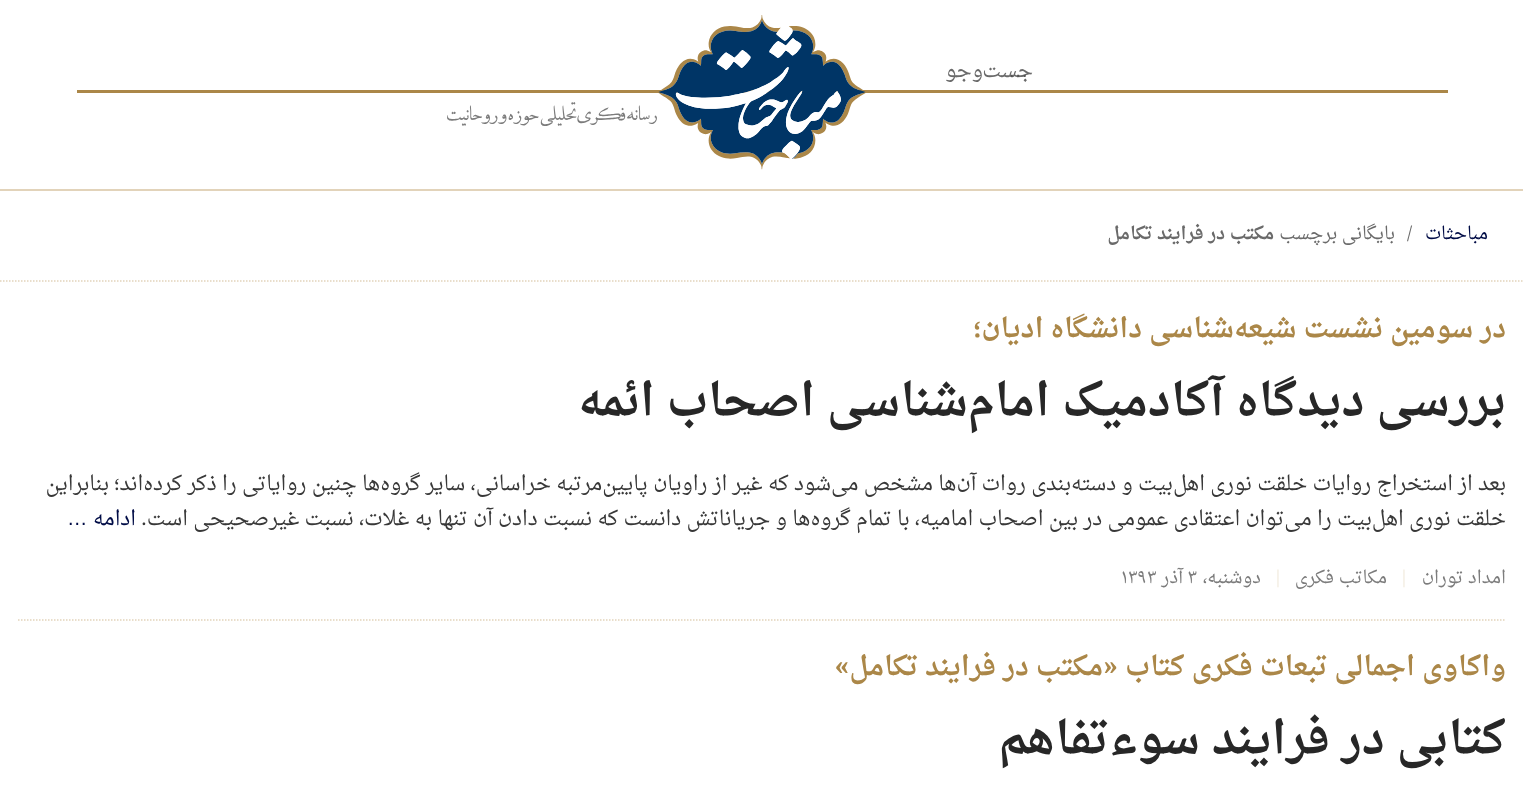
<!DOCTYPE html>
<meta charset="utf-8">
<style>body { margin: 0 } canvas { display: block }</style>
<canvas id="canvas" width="1523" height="787"></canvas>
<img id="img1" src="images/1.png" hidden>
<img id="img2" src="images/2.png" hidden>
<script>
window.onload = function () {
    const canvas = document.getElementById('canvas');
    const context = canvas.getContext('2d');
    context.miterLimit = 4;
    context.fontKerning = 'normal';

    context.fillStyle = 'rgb(255, 255, 255)';
    context.fillRect(0, 0, 1523, 787);
    context.fillStyle = 'rgb(226, 211, 186)';
    context.fillRect(0, 189, 1523, 2);
    context.fillStyle = 'rgb(171, 135, 72)';
    context.fillRect(77, 90, 1371, 3);
    context.drawImage(document.getElementById('img1'), 658, 15, 208, 155);
    context.drawImage(document.getElementById('img2'), 447, 102, 210, 24);
    context.beginPath();
    context.moveTo(0, 281);
    context.lineTo(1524, 281);
    context.strokeStyle = 'rgb(226, 211, 186)';
    context.lineWidth = 1.5;
    context.setLineDash([1.5, 1.5]);
    context.stroke();
    context.beginPath();
    context.moveTo(18, 620);
    context.lineTo(1506, 620);
    context.stroke();
    context.direction = 'rtl';
    context.font = '20.4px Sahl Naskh';
    context.fillStyle = 'rgb(106, 106, 106)';
    context.fillText('جست', 1033, 77);
    context.fillText('وجو', 983, 77);
    context.direction = 'ltr';
    context.font = '20.4px Liberation Sans';
    context.fillStyle = 'rgb(83, 83, 83)';
    context.fillText('…', 1008, 77);
    context.direction = 'rtl';
    context.font = '17.75px Sahl Naskh';
    context.fillStyle = 'rgb(0, 12, 70)';
    context.fillText('مباحثات', 1488, 239);
    context.direction = 'ltr';
    context.fillStyle = 'rgb(106, 106, 106)';
    context.fillText('/', 1407, 239);
    context.direction = 'rtl';
    context.fillText('بایگانی برچسب', 1395, 239);
    context.font = 'bold 17.75px Sahl Naskh';
    context.fillText('مکتب در فرایند تکامل', 1274, 239);
    context.font = 'bold 27px Sahl Naskh';
    context.fillStyle = 'rgb(171, 135, 72)';
    context.fillText('در سومین نشست شیعه‌شناسی دانشگاه ادیان؛', 1506, 337);
    context.font = 'bold 45px Sahl Naskh';
    context.fillStyle = 'rgb(39, 39, 39)';
    context.fillText('بررسی دیدگاه آکادمیک امام‌شناسی اصحاب ائمه', 1506, 415);
    context.font = '20.4px Sahl Naskh';
    context.fillStyle = 'rgb(56, 56, 56)';
    context.fillText('بعد از استخراج روایات خلقت نوری اهل‌بیت و دسته‌بندی روات آن‌ها مشخص می‌شود که غیر از راویان پایین‌مرتبه خراسانی، سایر گروه‌ها چنین روایاتی را ذکر کرده‌اند؛ بنابراین', 1506, 490);
    context.fillText('خلقت نوری اهل‌بیت را می‌توان اعتقادی عمومی در بین اصحاب امامیه، با تمام گروه‌ها و جریاناتش دانست که نسبت دادن آن تنها به غلات، نسبت غیرصحیحی است.', 1506, 525);
    context.fillStyle = 'rgb(0, 12, 70)';
    context.fillText('ادامه', 136, 525);
    context.direction = 'ltr';
    context.font = '20.4px Liberation Sans';
    context.fillText('…', 67, 525);
    context.direction = 'rtl';
    context.font = '17.75px Sahl Naskh';
    context.fillStyle = 'rgb(124, 124, 124)';
    context.fillText('امداد توران', 1506, 583);
    context.direction = 'ltr';
    context.fillStyle = 'rgb(241, 234, 221)';
    context.fillText('|', 1399, 583);
    context.direction = 'rtl';
    context.fillStyle = 'rgb(124, 124, 124)';
    context.fillText('مکاتب فکری', 1387, 583);
    context.direction = 'ltr';
    context.fillStyle = 'rgb(241, 234, 221)';
    context.fillText('|', 1273, 583);
    context.direction = 'rtl';
    context.fillStyle = 'rgb(124, 124, 124)';
    context.fillText('دوشنبه،', 1261, 583);
    context.direction = 'ltr';
    context.fillText('۳', 1187, 583);
    context.direction = 'rtl';
    context.fillText('آذر', 1183, 583);
    context.direction = 'ltr';
    context.fillText('۱۳۹۳', 1121, 583);
    context.direction = 'rtl';
    context.font = 'bold 27px Sahl Naskh';
    context.fillStyle = 'rgb(171, 135, 72)';
    context.fillText('واکاوی اجمالی تبعات فکری کتاب «مکتب در فرایند تکامل»', 1506, 675);
    context.font = 'bold 45px Sahl Naskh';
    context.fillStyle = 'rgb(39, 39, 39)';
    context.fillText('کتابی در فرایند سوءتفاهم', 1506, 753);
};
</script>
